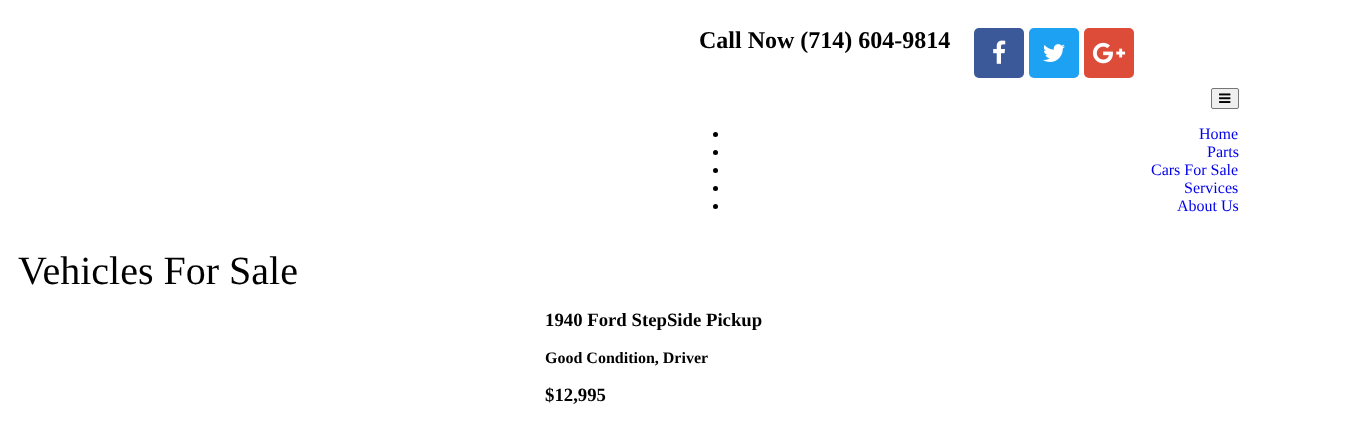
<!DOCTYPE html>
<meta charset="utf-8">
<style>body { margin: 0 } canvas { display: block }</style>
<canvas id="canvas" width="1357" height="426"></canvas>
<img id="img1" src="images/1.png" hidden>
<img id="img2" src="images/2.png" hidden>
<img id="img3" src="images/3.png" hidden>
<img id="img4" src="images/4.png" hidden>
<script>
window.onload = function () {
    const canvas = document.getElementById('canvas');
    const context = canvas.getContext('2d');
    context.miterLimit = 4;
    context.fontKerning = 'normal';

    context.fillStyle = 'rgb(255, 255, 255)';
    context.fillRect(0, 0, 1357, 426);
    context.fillStyle = 'rgb(59, 89, 152)';
    context.beginPath();
    context.roundRect(974, 28, 50, 50, 5);
    context.fill();
    context.drawImage(document.getElementById('img1'), 993, 40, 13, 24);
    context.fillStyle = 'rgb(29, 161, 242)';
    context.beginPath();
    context.roundRect(1029, 28, 50, 50, 5);
    context.fill();
    context.drawImage(document.getElementById('img2'), 1043, 44, 22, 18);
    context.fillStyle = 'rgb(221, 75, 57)';
    context.beginPath();
    context.roundRect(1084, 28, 50, 50, 5);
    context.fill();
    context.drawImage(document.getElementById('img3'), 1092, 42, 34, 22);
    context.fillStyle = 'rgb(239, 239, 239)';
    context.beginPath();
    context.roundRect(1211.5, 88.5, 27, 20, 1.5);
    context.fill();
    context.strokeStyle = 'rgb(118, 118, 118)';
    context.stroke();
    context.drawImage(document.getElementById('img4'), 1219, 93, 12, 10);
    context.fillStyle = 'rgb(0, 0, 0)';
    context.beginPath();
    context.arc(715.5, 134.5, 2.5, 0, 2 * Math.PI);
    context.fill();
    context.beginPath();
    context.arc(715.5, 152.5, 2.5, 0, 2 * Math.PI);
    context.fill();
    context.beginPath();
    context.arc(715.5, 170.5, 2.5, 0, 2 * Math.PI);
    context.fill();
    context.beginPath();
    context.arc(715.5, 188.5, 2.5, 0, 2 * Math.PI);
    context.fill();
    context.beginPath();
    context.arc(715.5, 206.5, 2.5, 0, 2 * Math.PI);
    context.fill();
    context.font = 'bold 24px Liberation Serif';
    context.fillText('Call Now (714) 604-9814', 699, 48);
    context.font = '16px Liberation Serif';
    context.fillStyle = 'rgb(0, 0, 238)';
    context.fillText('Home', 1199, 139);
    context.fillText('Parts', 1207, 157);
    context.fillText('Cars For Sale', 1151, 175);
    context.fillText('Services', 1184, 193);
    context.fillText('About Us', 1177, 211);
    context.font = '40px Liberation Serif';
    context.fillStyle = 'rgb(0, 0, 0)';
    context.fillText('Vehicles For Sale', 18, 284);
    context.font = 'bold 18.75px Liberation Serif';
    context.fillText('1940 Ford StepSide Pickup', 545, 326);
    context.font = 'bold 16px Liberation Serif';
    context.fillText('Good Condition, Driver', 545, 363);
    context.font = 'bold 18.75px Liberation Serif';
    context.fillText('$12,995', 545, 401);
};
</script>
